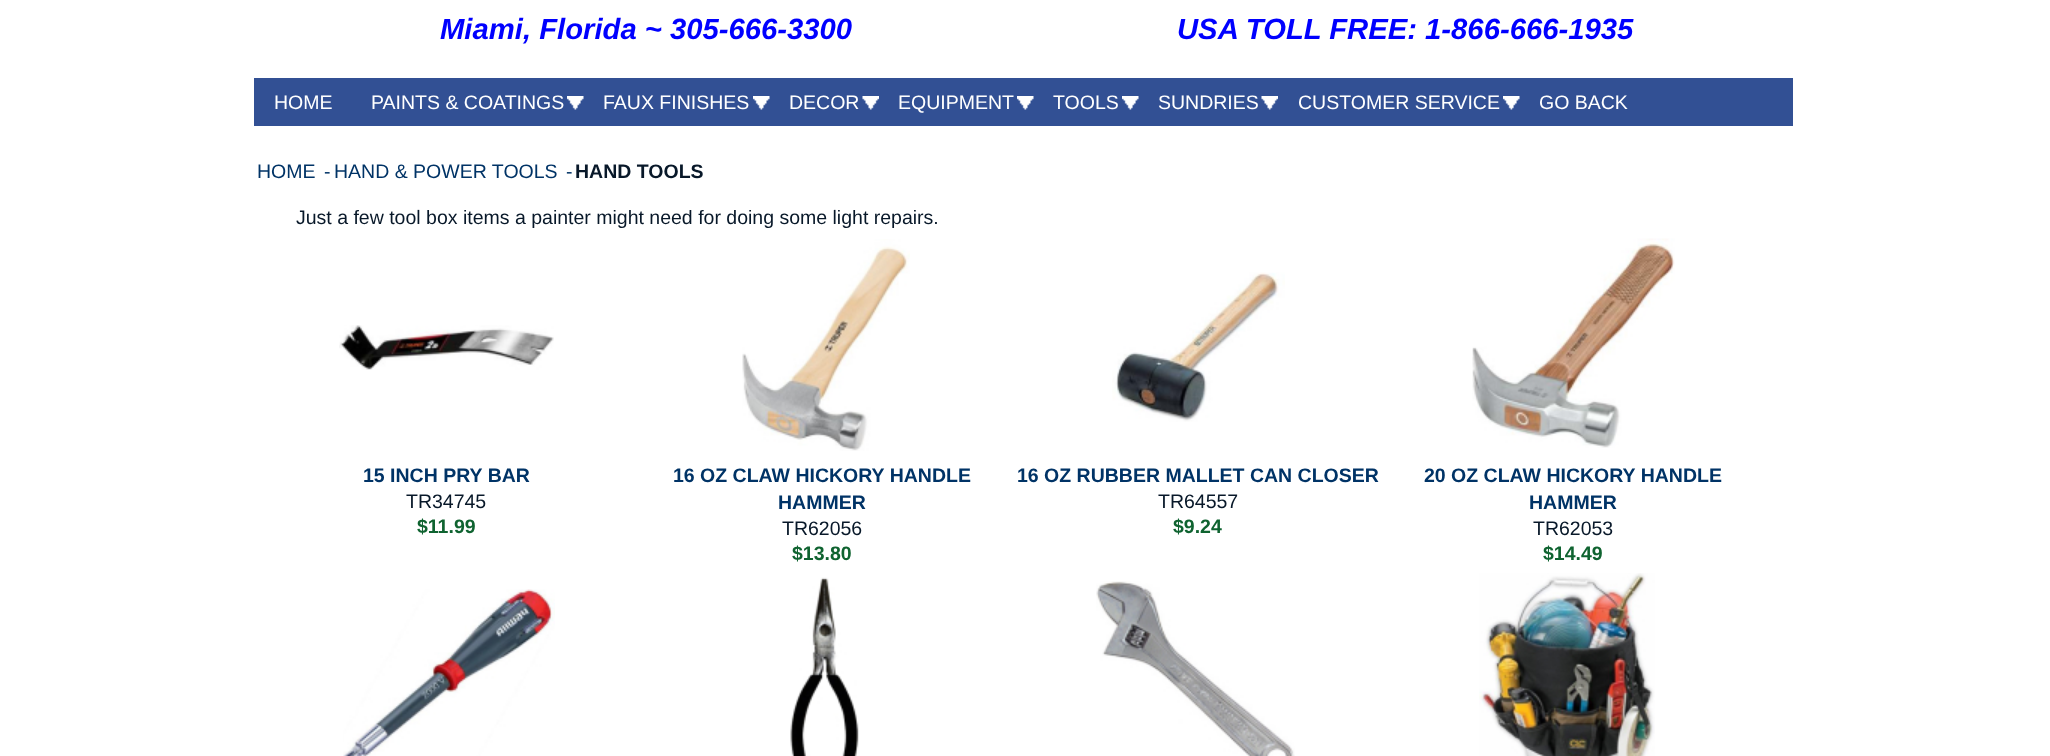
<!DOCTYPE html>
<meta charset="utf-8">
<style>body { margin: 0 } canvas { display: block }</style>
<canvas id="canvas" width="2050" height="756"></canvas>
<img id="img1" src="images/1.png" hidden>
<img id="img2" src="images/2.png" hidden>
<img id="img3" src="images/3.png" hidden>
<img id="img4" src="images/4.png" hidden>
<img id="img5" src="images/5.png" hidden>
<img id="img6" src="images/6.png" hidden>
<img id="img7" src="images/7.png" hidden>
<img id="img8" src="images/8.png" hidden>
<img id="img9" src="images/9.png" hidden>
<img id="img10" src="images/10.png" hidden>
<img id="img11" src="images/11.png" hidden>
<img id="img12" src="images/12.png" hidden>
<script>
window.onload = function () {
    const canvas = document.getElementById('canvas');
    const context = canvas.getContext('2d');
    context.miterLimit = 4;
    context.fontKerning = 'normal';

    context.fillStyle = 'rgb(255, 255, 255)';
    context.fillRect(0, 0, 2050, 756);
    context.fillStyle = 'rgb(50, 80, 148)';
    context.fillRect(254, 78, 1539, 48);
    context.drawImage(document.getElementById('img1'), 567, 96, 17, 14);
    context.drawImage(document.getElementById('img2'), 753, 96, 17, 14);
    context.drawImage(document.getElementById('img3'), 862, 96, 17, 14);
    context.drawImage(document.getElementById('img4'), 1017, 96, 17, 14);
    context.drawImage(document.getElementById('img1'), 1122, 96, 17, 14);
    context.drawImage(document.getElementById('img3'), 1261, 96, 17, 14);
    context.drawImage(document.getElementById('img1'), 1503, 96, 17, 14);
    context.drawImage(document.getElementById('img5'), 339, 325, 215, 45);
    context.drawImage(document.getElementById('img6'), 742, 239, 168, 212);
    context.drawImage(document.getElementById('img7'), 1112, 272, 173, 150);
    context.drawImage(document.getElementById('img8'), 1472, 238, 203, 210);
    context.drawImage(document.getElementById('img9'), 343, 589, 212, 167);
    context.drawImage(document.getElementById('img10'), 790, 577, 69, 179);
    context.drawImage(document.getElementById('img11'), 1096, 581, 199, 175);
    context.drawImage(document.getElementById('img12'), 1479, 573, 176, 183);
    context.font = 'italic bold 29.25px Liberation Sans';
    context.fillStyle = 'rgb(0, 0, 255)';
    context.fillText('Miami, Florida ~ 305-666-3300', 440, 39);
    context.fillText('USA TOLL FREE: 1-866-666-1935', 1177, 39);
    context.font = '19.5px Liberation Sans';
    context.fillStyle = 'rgb(255, 255, 255)';
    context.fillText('HOME', 274, 109);
    context.fillText('PAINTS & COATINGS', 371, 109);
    context.fillText('FAUX FINISHES', 603, 109);
    context.fillText('DECOR', 789, 109);
    context.fillText('EQUIPMENT', 898, 109);
    context.fillText('TOOLS', 1053, 109);
    context.fillText('SUNDRIES', 1158, 109);
    context.fillText('CUSTOMER SERVICE', 1298, 109);
    context.fillText('GO BACK', 1539, 109);
    context.fillStyle = 'rgb(0, 51, 102)';
    context.fillText('HOME', 257, 178);
    context.fillText('-', 324, 178);
    context.fillText('HAND & POWER TOOLS', 334, 178);
    context.fillText('-', 566, 178);
    context.font = 'bold 19.5px Liberation Sans';
    context.fillStyle = 'rgb(8, 24, 41)';
    context.fillText('HAND TOOLS', 575, 178);
    context.font = '19.5px Liberation Sans';
    context.fillText('Just a few tool box items a painter might need for doing some light repairs.', 296, 224);
    context.font = 'bold 19.5px Liberation Sans';
    context.fillStyle = 'rgb(0, 51, 102)';
    context.fillText('15 INCH PRY BAR', 363, 482);
    context.font = '19.5px Liberation Sans';
    context.fillStyle = 'rgb(8, 24, 41)';
    context.fillText('TR34745', 406, 508);
    context.font = 'bold 19.5px Liberation Sans';
    context.fillStyle = 'rgb(15, 99, 48)';
    context.fillText('$11.99', 417, 533);
    context.fillStyle = 'rgb(0, 51, 102)';
    context.fillText('16 OZ CLAW HICKORY HANDLE', 673, 482);
    context.fillText('HAMMER', 778, 509);
    context.font = '19.5px Liberation Sans';
    context.fillStyle = 'rgb(8, 24, 41)';
    context.fillText('TR62056', 782, 535);
    context.font = 'bold 19.5px Liberation Sans';
    context.fillStyle = 'rgb(15, 99, 48)';
    context.fillText('$13.80', 792, 560);
    context.fillStyle = 'rgb(0, 51, 102)';
    context.fillText('16 OZ RUBBER MALLET CAN CLOSER', 1017, 482);
    context.font = '19.5px Liberation Sans';
    context.fillStyle = 'rgb(8, 24, 41)';
    context.fillText('TR64557', 1158, 508);
    context.font = 'bold 19.5px Liberation Sans';
    context.fillStyle = 'rgb(15, 99, 48)';
    context.fillText('$9.24', 1173, 533);
    context.fillStyle = 'rgb(0, 51, 102)';
    context.fillText('20 OZ CLAW HICKORY HANDLE', 1424, 482);
    context.fillText('HAMMER', 1529, 509);
    context.font = '19.5px Liberation Sans';
    context.fillStyle = 'rgb(8, 24, 41)';
    context.fillText('TR62053', 1533, 535);
    context.font = 'bold 19.5px Liberation Sans';
    context.fillStyle = 'rgb(15, 99, 48)';
    context.fillText('$14.49', 1543, 560);
};
</script>
